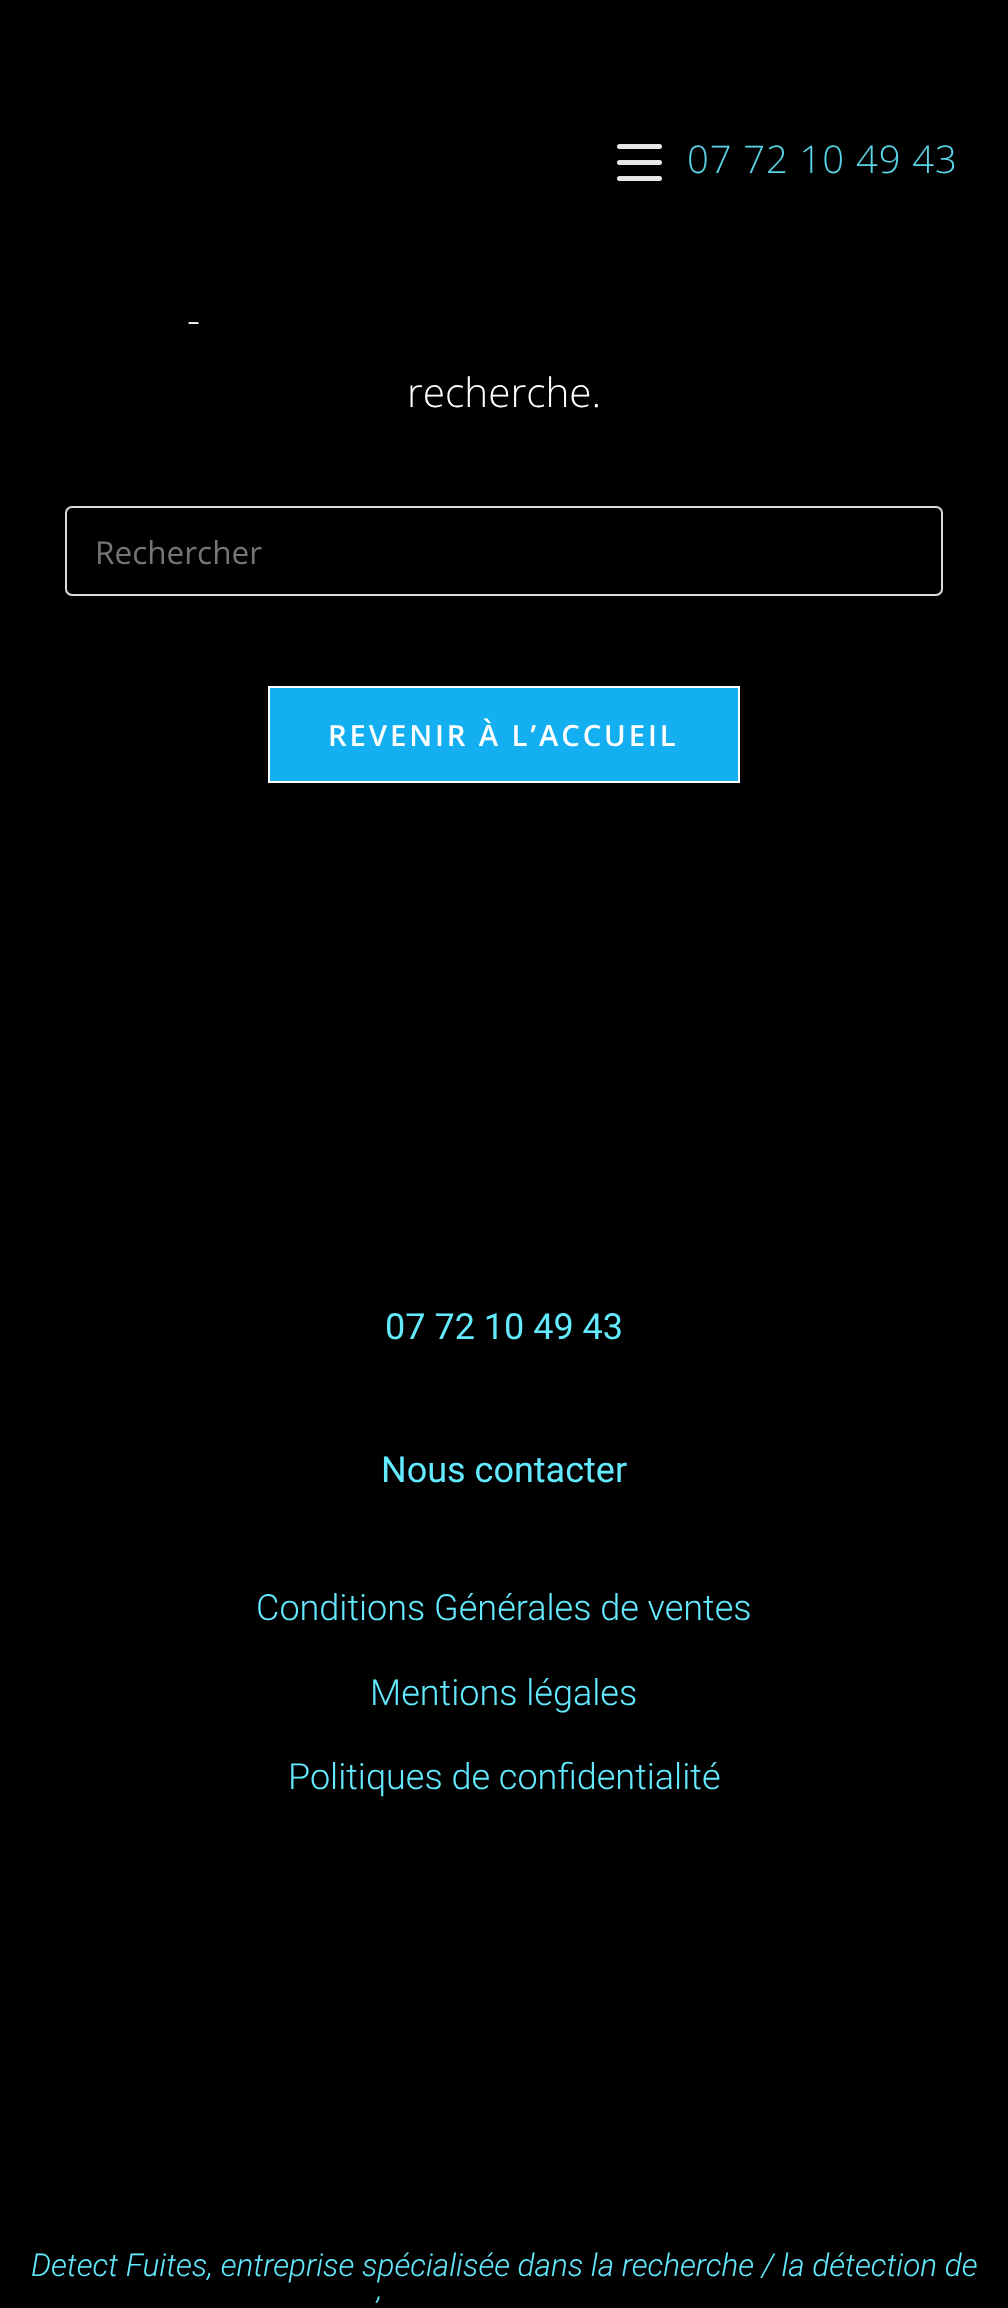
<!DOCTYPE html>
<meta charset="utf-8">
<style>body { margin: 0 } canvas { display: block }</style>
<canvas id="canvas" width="1008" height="2308"></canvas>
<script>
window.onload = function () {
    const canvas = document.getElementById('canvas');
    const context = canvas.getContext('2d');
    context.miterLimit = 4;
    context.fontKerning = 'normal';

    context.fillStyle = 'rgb(0, 0, 0)';
    context.fillRect(0, 0, 1008, 2308);
    context.fillStyle = 'rgba(255, 255, 255, 0.9)';
    context.beginPath();
    context.roundRect(617, 176, 45, 5, 2.5);
    context.fill();
    context.fillStyle = 'rgb(230, 230, 230)';
    context.beginPath();
    context.roundRect(617, 144, 45, 5, 2.5);
    context.fill();
    context.fillStyle = 'rgba(255, 255, 255, 0.9)';
    context.beginPath();
    context.roundRect(617, 160, 45, 5, 2.5);
    context.fill();
    context.beginPath();
    context.roundRect(66, 507, 876, 88, 6);
    context.strokeStyle = 'rgb(221, 221, 221)';
    context.lineWidth = 2;
    context.stroke();
    context.fillStyle = 'rgb(19, 175, 240)';
    context.beginPath();
    context.rect(269, 687, 470, 95);
    context.fill();
    context.strokeStyle = 'rgb(255, 255, 255)';
    context.stroke();
    context.letterSpacing = '0.9px';
    context.font = '300 38.25px Open Sans';
    context.fillStyle = 'rgb(89, 211, 230)';
    context.fillText('07 72 10 49 43', 687, 173);
    context.letterSpacing = '0px';
    context.font = '300 40.5px Open Sans';
    context.fillStyle = 'rgb(255, 255, 255)';
    context.fillText('-', 187, 334);
    context.fillText('recherche.', 407, 407);
    context.font = '31.5px Open Sans';
    context.fillStyle = 'rgb(117, 117, 117)';
    context.fillText('Rechercher', 95, 564);
    context.letterSpacing = '2.9px';
    context.font = '600 29.25px Open Sans';
    context.fillStyle = 'rgb(255, 255, 255)';
    context.fillText('REVENIR À L’ACCUEIL', 328, 746);
    context.letterSpacing = '0px';
    context.font = '36px Roboto';
    context.fillStyle = 'rgb(99, 234, 255)';
    context.fillText('07 72 10 49 43', 385, 1339);
    context.fillText('Nous contacter', 381, 1482);
    context.font = '300 36px Roboto';
    context.fillText('Conditions Générales de ventes', 256, 1620);
    context.fillText('Mentions légales', 370, 1705);
    context.fillText('Politiques de confidentialité', 288, 1789);
    context.font = 'italic 300 31.5px Roboto';
    context.fillText('Detect Fuites, entreprise spécialisée dans la recherche / la détection de', 31, 2276);
    context.fillText('’', 373, 2320);
};
</script>
